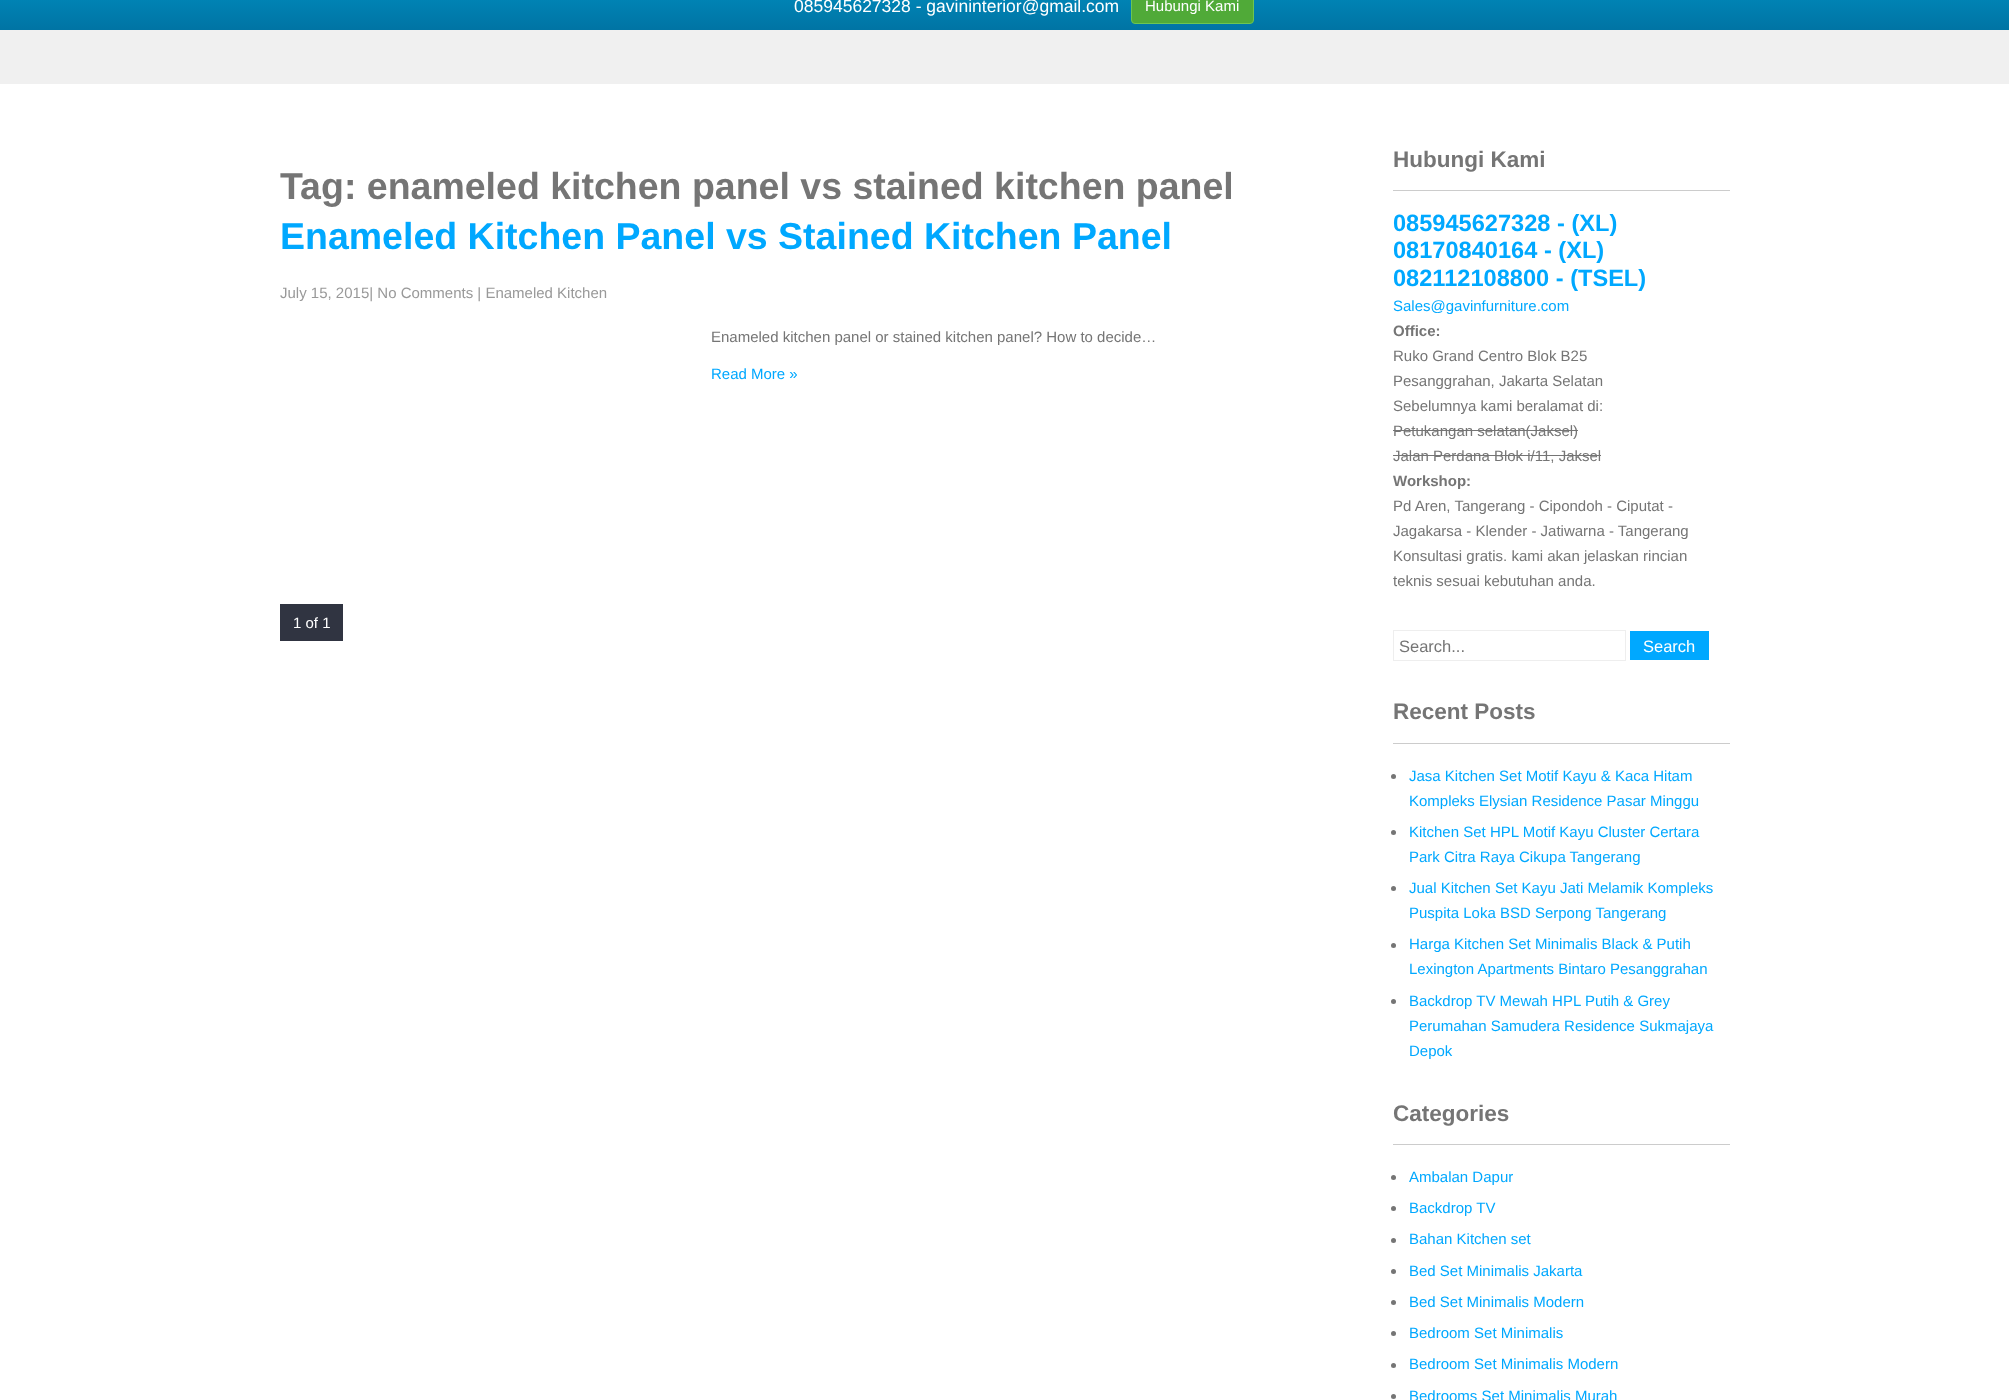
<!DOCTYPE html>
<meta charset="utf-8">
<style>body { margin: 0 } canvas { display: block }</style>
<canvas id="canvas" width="2009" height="1400"></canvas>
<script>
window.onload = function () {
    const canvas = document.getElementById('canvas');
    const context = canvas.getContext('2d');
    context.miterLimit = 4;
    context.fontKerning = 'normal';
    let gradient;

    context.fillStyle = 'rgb(255, 255, 255)';
    context.fillRect(0, 0, 2009, 1400);
    gradient = context.createLinearGradient(1005, -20, 1005, 30);
    gradient.addColorStop(0, 'rgb(0, 141, 190)');
    gradient.addColorStop(1, 'rgb(0, 116, 164)');
    context.fillStyle = gradient;
    context.fillRect(0, 0, 2009, 30);
    context.fillStyle = 'rgb(80, 170, 56)';
    context.beginPath();
    context.roundRect(1131.5, -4.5, 122, 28, 3.5);
    context.fill();
    context.strokeStyle = 'rgb(108, 197, 82)';
    context.stroke();
    context.fillStyle = 'rgb(48, 52, 65)';
    context.fillRect(280, 604, 63, 37);
    context.fillStyle = 'rgb(204, 204, 204)';
    context.fillRect(1393, 190, 337, 1);
    context.fillStyle = 'rgb(117, 117, 117)';
    context.fillRect(1393, 430, 185, 1);
    context.fillRect(1393, 455, 208, 1);
    context.strokeStyle = 'rgb(238, 238, 238)';
    context.strokeRect(1393.5, 630.5, 232, 30);
    context.fillStyle = 'rgb(0, 168, 255)';
    context.fillRect(1630, 631, 79, 29);
    context.fillStyle = 'rgb(204, 204, 204)';
    context.fillRect(1393, 743, 337, 1);
    context.fillStyle = 'rgb(117, 117, 117)';
    context.beginPath();
    context.arc(1393.5, 776.5, 2.5, 0, 2 * Math.PI);
    context.fill();
    context.beginPath();
    context.arc(1393.5, 832.5, 2.5, 0, 2 * Math.PI);
    context.fill();
    context.beginPath();
    context.arc(1393.5, 888.5, 2.5, 0, 2 * Math.PI);
    context.fill();
    context.beginPath();
    context.arc(1393.5, 945.5, 2.5, 0, 2 * Math.PI);
    context.fill();
    context.beginPath();
    context.arc(1393.5, 1001.5, 2.5, 0, 2 * Math.PI);
    context.fill();
    context.fillStyle = 'rgb(204, 204, 204)';
    context.fillRect(1393, 1144, 337, 1);
    context.fillStyle = 'rgb(117, 117, 117)';
    context.beginPath();
    context.arc(1393.5, 1177.5, 2.5, 0, 2 * Math.PI);
    context.fill();
    context.beginPath();
    context.arc(1393.5, 1208.5, 2.5, 0, 2 * Math.PI);
    context.fill();
    context.beginPath();
    context.arc(1393.5, 1240.5, 2.5, 0, 2 * Math.PI);
    context.fill();
    context.beginPath();
    context.arc(1393.5, 1271.5, 2.5, 0, 2 * Math.PI);
    context.fill();
    context.beginPath();
    context.arc(1393.5, 1302.5, 2.5, 0, 2 * Math.PI);
    context.fill();
    context.beginPath();
    context.arc(1393.5, 1333.5, 2.5, 0, 2 * Math.PI);
    context.fill();
    context.beginPath();
    context.arc(1393.5, 1365.5, 2.5, 0, 2 * Math.PI);
    context.fill();
    context.beginPath();
    context.arc(1393.5, 1396.5, 2.5, 0, 2 * Math.PI);
    context.fill();
    context.fillStyle = 'rgb(240, 240, 240)';
    context.fillRect(0, 30, 2009, 54);
    context.font = '17.5px Liberation Sans';
    context.fillStyle = 'rgb(255, 255, 255)';
    context.fillText('085945627328 - gavininterior@gmail.com', 794, 12);
    context.font = '15px Liberation Sans';
    context.fillText('Hubungi Kami', 1145, 11);
    context.font = 'bold 37.5px Liberation Sans';
    context.fillStyle = 'rgb(117, 117, 117)';
    context.fillText('Tag: enameled kitchen panel vs stained kitchen panel', 280, 199);
    context.fillStyle = 'rgb(0, 168, 255)';
    context.fillText('Enameled Kitchen Panel vs Stained Kitchen Panel', 280, 249);
    context.font = '15px Liberation Sans';
    context.fillStyle = 'rgb(153, 153, 153)';
    context.fillText('July 15, 2015| No Comments | Enameled Kitchen', 280, 298);
    context.fillStyle = 'rgb(117, 117, 117)';
    context.fillText('Enameled kitchen panel or stained kitchen panel? How to decide…', 711, 342);
    context.fillStyle = 'rgb(0, 168, 255)';
    context.fillText('Read More »', 711, 379);
    context.fillStyle = 'rgb(255, 255, 255)';
    context.fillText('1 of 1', 293, 628);
    context.font = 'bold 22.5px Liberation Sans';
    context.fillStyle = 'rgb(117, 117, 117)';
    context.fillText('Hubungi Kami', 1393, 167);
    context.font = 'bold 23.6px Liberation Sans';
    context.fillStyle = 'rgb(0, 168, 255)';
    context.fillText('085945627328 - (XL)', 1393, 231);
    context.fillText('08170840164 - (XL)', 1393, 258);
    context.fillText('082112108800 - (TSEL)', 1393, 286);
    context.font = '15px Liberation Sans';
    context.fillText('Sales@gavinfurniture.com', 1393, 311);
    context.font = 'bold 15px Liberation Sans';
    context.fillStyle = 'rgb(117, 117, 117)';
    context.fillText('Office:', 1393, 336);
    context.font = '15px Liberation Sans';
    context.fillText('Ruko Grand Centro Blok B25', 1393, 361);
    context.fillText('Pesanggrahan, Jakarta Selatan', 1393, 386);
    context.fillText('Sebelumnya kami beralamat di:', 1393, 411);
    context.fillText('Petukangan selatan(Jaksel)', 1393, 436);
    context.fillText('Jalan Perdana Blok i/11, Jaksel', 1393, 461);
    context.font = 'bold 15px Liberation Sans';
    context.fillText('Workshop:', 1393, 486);
    context.font = '15px Liberation Sans';
    context.fillText('Pd Aren, Tangerang - Cipondoh - Ciputat -', 1393, 511);
    context.fillText('Jagakarsa - Klender - Jatiwarna - Tangerang', 1393, 536);
    context.fillText('Konsultasi gratis. kami akan jelaskan rincian', 1393, 561);
    context.fillText('teknis sesuai kebutuhan anda.', 1393, 586);
    context.font = '16.5px Liberation Sans';
    context.fillText('Search...', 1399, 652);
    context.fillStyle = 'rgb(255, 255, 255)';
    context.fillText('Search', 1643, 652);
    context.font = 'bold 22.5px Liberation Sans';
    context.fillStyle = 'rgb(117, 117, 117)';
    context.fillText('Recent Posts', 1393, 719);
    context.font = '15px Liberation Sans';
    context.fillStyle = 'rgb(0, 168, 255)';
    context.fillText('Jasa Kitchen Set Motif Kayu & Kaca Hitam', 1409, 781);
    context.fillText('Kompleks Elysian Residence Pasar Minggu', 1409, 806);
    context.fillText('Kitchen Set HPL Motif Kayu Cluster Certara', 1409, 837);
    context.fillText('Park Citra Raya Cikupa Tangerang', 1409, 862);
    context.fillText('Jual Kitchen Set Kayu Jati Melamik Kompleks', 1409, 893);
    context.fillText('Puspita Loka BSD Serpong Tangerang', 1409, 918);
    context.fillText('Harga Kitchen Set Minimalis Black & Putih', 1409, 949);
    context.fillText('Lexington Apartments Bintaro Pesanggrahan', 1409, 974);
    context.fillText('Backdrop TV Mewah HPL Putih & Grey', 1409, 1006);
    context.fillText('Perumahan Samudera Residence Sukmajaya', 1409, 1031);
    context.fillText('Depok', 1409, 1056);
    context.font = 'bold 22.5px Liberation Sans';
    context.fillStyle = 'rgb(117, 117, 117)';
    context.fillText('Categories', 1393, 1121);
    context.font = '15px Liberation Sans';
    context.fillStyle = 'rgb(0, 168, 255)';
    context.fillText('Ambalan Dapur', 1409, 1182);
    context.fillText('Backdrop TV', 1409, 1213);
    context.fillText('Bahan Kitchen set', 1409, 1244);
    context.fillText('Bed Set Minimalis Jakarta', 1409, 1276);
    context.fillText('Bed Set Minimalis Modern', 1409, 1307);
    context.fillText('Bedroom Set Minimalis', 1409, 1338);
    context.fillText('Bedroom Set Minimalis Modern', 1409, 1369);
    context.fillText('Bedrooms Set Minimalis Murah', 1409, 1401);
};
</script>
